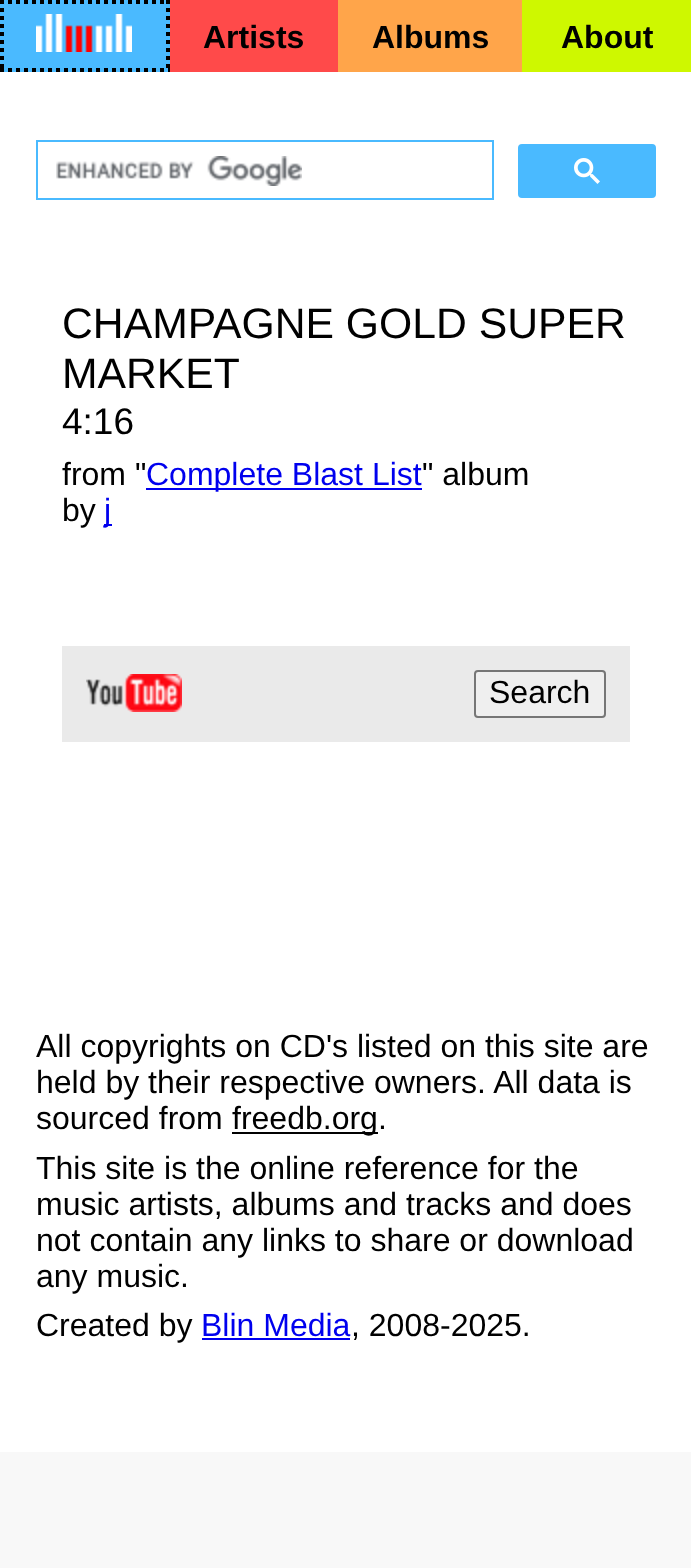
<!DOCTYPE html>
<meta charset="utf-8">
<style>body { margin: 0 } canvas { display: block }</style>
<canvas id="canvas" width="691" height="1568"></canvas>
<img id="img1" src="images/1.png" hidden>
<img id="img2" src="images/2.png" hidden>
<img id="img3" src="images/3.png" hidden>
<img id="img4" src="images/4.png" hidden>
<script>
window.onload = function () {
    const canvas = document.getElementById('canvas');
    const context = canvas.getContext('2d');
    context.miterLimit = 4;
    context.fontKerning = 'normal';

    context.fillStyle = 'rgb(248, 248, 248)';
    context.fillRect(0, 0, 691, 1568);
    context.fillStyle = 'rgb(255, 255, 255)';
    context.fillRect(0, 72, 691, 1380);
    context.fillStyle = 'rgb(74, 186, 255)';
    context.fillRect(0, 0, 170, 72);
    context.beginPath();
    context.moveTo(0, 2);
    context.lineTo(170, 2);
    context.strokeStyle = 'rgb(0, 0, 0)';
    context.lineWidth = 4;
    context.setLineDash([4, 4]);
    context.stroke();
    context.beginPath();
    context.moveTo(168, 0);
    context.lineTo(168, 72);
    context.stroke();
    context.beginPath();
    context.moveTo(0, 70);
    context.lineTo(170, 70);
    context.stroke();
    context.beginPath();
    context.moveTo(2, 0);
    context.lineTo(2, 72);
    context.stroke();
    context.drawImage(document.getElementById('img1'), 36, 14, 96, 38);
    context.fillStyle = 'rgb(255, 74, 74)';
    context.fillRect(170, 0, 168, 72);
    context.fillStyle = 'rgb(255, 165, 74)';
    context.fillRect(338, 0, 184, 72);
    context.fillStyle = 'rgb(206, 248, 0)';
    context.fillRect(522, 0, 169, 72);
    context.strokeStyle = 'rgb(74, 186, 255)';
    context.lineWidth = 2;
    context.setLineDash([]);
    context.strokeRect(37, 141, 456, 58);
    context.drawImage(document.getElementById('img2'), 56, 156, 246, 30);
    context.fillStyle = 'rgb(74, 186, 255)';
    context.beginPath();
    context.roundRect(519, 145, 136, 52, 3);
    context.fill();
    context.stroke();
    context.drawImage(document.getElementById('img3'), 574, 158, 26, 26);
    context.fillStyle = 'rgb(0, 0, 238)';
    context.fillRect(146, 488, 276, 2);
    context.fillRect(104, 524, 8, 2);
    context.fillStyle = 'rgb(234, 234, 234)';
    context.fillRect(62, 646, 568, 96);
    context.drawImage(document.getElementById('img4'), 86, 674, 96, 38);
    context.fillStyle = 'rgb(239, 239, 239)';
    context.beginPath();
    context.roundRect(475, 671, 130, 46, 3);
    context.fill();
    context.strokeStyle = 'rgb(118, 118, 118)';
    context.stroke();
    context.fillStyle = 'rgb(0, 0, 0)';
    context.fillRect(232, 1132, 146, 2);
    context.fillStyle = 'rgb(0, 0, 238)';
    context.fillRect(202, 1338, 148, 2);
    context.font = 'bold 32px Liberation Sans';
    context.fillStyle = 'rgb(0, 0, 0)';
    context.fillText('Artists', 203, 48);
    context.fillText('Albums', 372, 48);
    context.fillText('About', 561, 48);
    context.font = '42.7px Liberation Sans';
    context.fillText('CHAMPAGNE GOLD SUPER', 62, 338);
    context.fillText('MARKET', 62, 388);
    context.font = '37px Liberation Sans';
    context.fillText('4:16', 62, 434);
    context.font = '32px Liberation Sans';
    context.fillText('from "', 62, 485);
    context.fillStyle = 'rgb(0, 0, 238)';
    context.fillText('Complete Blast List', 146, 485);
    context.fillStyle = 'rgb(0, 0, 0)';
    context.fillText('" album', 422, 485);
    context.fillText('by', 62, 521);
    context.fillStyle = 'rgb(0, 0, 238)';
    context.fillText('j', 104, 521);
    context.fillStyle = 'rgb(0, 0, 0)';
    context.fillText('Search', 489, 703);
    context.fillText('All copyrights on CD\'s listed on this site are', 36, 1057);
    context.fillText('held by their respective owners. All data is', 36, 1093);
    context.fillText('sourced from', 36, 1129);
    context.fillText('freedb.org.', 232, 1129);
    context.fillText('This site is the online reference for the', 36, 1179);
    context.fillText('music artists, albums and tracks and does', 36, 1215);
    context.fillText('not contain any links to share or download', 36, 1251);
    context.fillText('any music.', 36, 1287);
    context.fillText('Created by', 36, 1336);
    context.fillStyle = 'rgb(0, 0, 238)';
    context.fillText('Blin Media', 201, 1336);
    context.fillStyle = 'rgb(0, 0, 0)';
    context.fillText(', 2008-2025.', 351, 1336);
};
</script>
